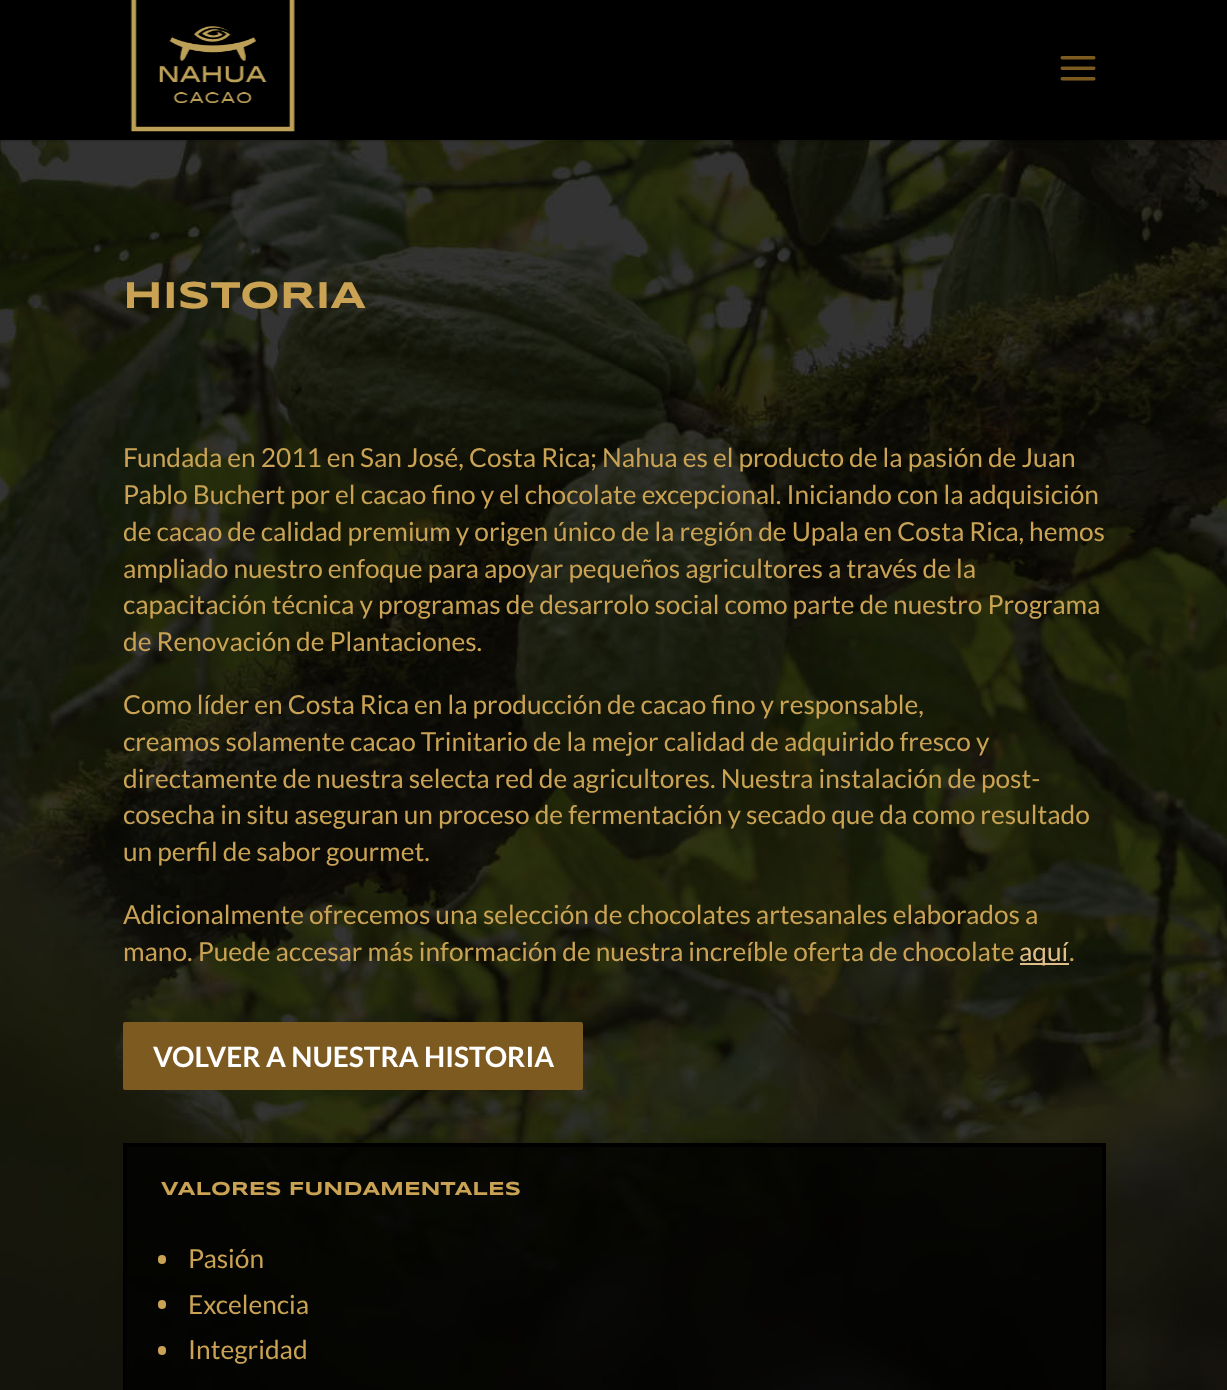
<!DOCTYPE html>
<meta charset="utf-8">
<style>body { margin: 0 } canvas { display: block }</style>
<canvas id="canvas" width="1227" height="1390"></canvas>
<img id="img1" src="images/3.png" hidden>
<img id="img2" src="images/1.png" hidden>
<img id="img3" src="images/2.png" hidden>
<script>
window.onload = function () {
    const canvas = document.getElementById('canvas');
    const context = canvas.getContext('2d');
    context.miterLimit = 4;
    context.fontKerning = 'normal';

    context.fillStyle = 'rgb(255, 255, 255)';
    context.fillRect(0, 0, 1227, 1390);
    context.drawImage(document.getElementById('img1'), 0, 140, 1227, 1250);
    context.fillStyle = 'rgba(0, 0, 0, 0.1)';
    context.beginPath();
    context.moveTo(0, 140);
    context.lineTo(0, 142);
    context.lineTo(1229, 142);
    context.lineTo(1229, 2);
    context.lineTo(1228, 2);
    context.lineTo(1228, 140);
    context.closePath();
    context.fill();
    context.fillStyle = 'rgb(0, 0, 0)';
    context.fillRect(0, 0, 1227, 140);
    context.drawImage(document.getElementById('img2'), 130, 0, 165, 132);
    context.drawImage(document.getElementById('img3'), 1060, 56, 36, 25);
    context.fillStyle = 'rgb(226, 191, 136)';
    context.fillRect(1020, 963, 49, 2);
    context.fillStyle = 'rgb(125, 90, 32)';
    context.beginPath();
    context.roundRect(124, 1023, 458, 66, 1);
    context.fill();
    context.strokeStyle = 'rgb(125, 90, 32)';
    context.lineWidth = 2;
    context.stroke();
    context.fillStyle = 'rgba(0, 0, 0, 0.8)';
    context.beginPath();
    context.rect(125, 1145, 979, 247);
    context.fill();
    context.strokeStyle = 'rgb(0, 0, 0)';
    context.lineWidth = 4;
    context.stroke();
    context.fillStyle = 'rgb(201, 162, 83)';
    context.beginPath();
    context.roundRect(158, 1255, 8, 9, 4);
    context.fill();
    context.beginPath();
    context.roundRect(158, 1300, 8, 9, 4);
    context.fill();
    context.beginPath();
    context.roundRect(158, 1346, 8, 9, 4);
    context.fill();
    context.font = 'bold 38.5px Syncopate';
    context.fillText('HISTORIA', 123, 308);
    context.font = '26.25px Lato';
    context.fillText('Fundada en 2011 en San José, Costa Rica; Nahua es el producto de la pasión de Juan', 123, 467);
    context.fillText('Pablo Buchert por el cacao fino y el chocolate excepcional. Iniciando con la adquisición', 123, 504);
    context.fillText('de cacao de calidad premium y origen único de la región de Upala en Costa Rica, hemos', 123, 541);
    context.fillText('ampliado nuestro enfoque para apoyar pequeños agricultores a través de la', 123, 578);
    context.fillText('capacitación técnica y programas de desarrolo social como parte de nuestro Programa', 123, 614);
    context.fillText('de Renovación de Plantaciones.', 123, 651);
    context.fillText('Como líder en Costa Rica en la producción de cacao fino y responsable,', 123, 714);
    context.fillText('creamos solamente cacao Trinitario de la mejor calidad de adquirido fresco y', 123, 751);
    context.fillText('directamente de nuestra selecta red de agricultores. Nuestra instalación de post-', 123, 788);
    context.fillText('cosecha in situ aseguran un proceso de fermentación y secado que da como resultado', 123, 824);
    context.fillText('un perfil de sabor gourmet.', 123, 861);
    context.fillText('Adicionalmente ofrecemos una selección de chocolates artesanales elaborados a', 123, 924);
    context.fillText('mano. Puede accesar más información de nuestra increíble oferta de chocolate', 123, 961);
    context.fillStyle = 'rgb(226, 191, 136)';
    context.fillText('aquí', 1019, 961);
    context.fillStyle = 'rgb(201, 162, 83)';
    context.fillText('.', 1069, 961);
    context.font = 'bold 28px Lato';
    context.fillStyle = 'rgb(255, 255, 255)';
    context.fillText('VOLVER A NUESTRA HISTORIA', 153, 1067);
    context.font = 'bold 19.25px Syncopate';
    context.fillStyle = 'rgb(201, 162, 83)';
    context.fillText('VALORES FUNDAMENTALES', 161, 1195);
    context.font = '26.25px Lato';
    context.fillText('Pasión', 188, 1268);
    context.fillText('Excelencia', 188, 1314);
    context.fillText('Integridad', 188, 1359);
};
</script>
